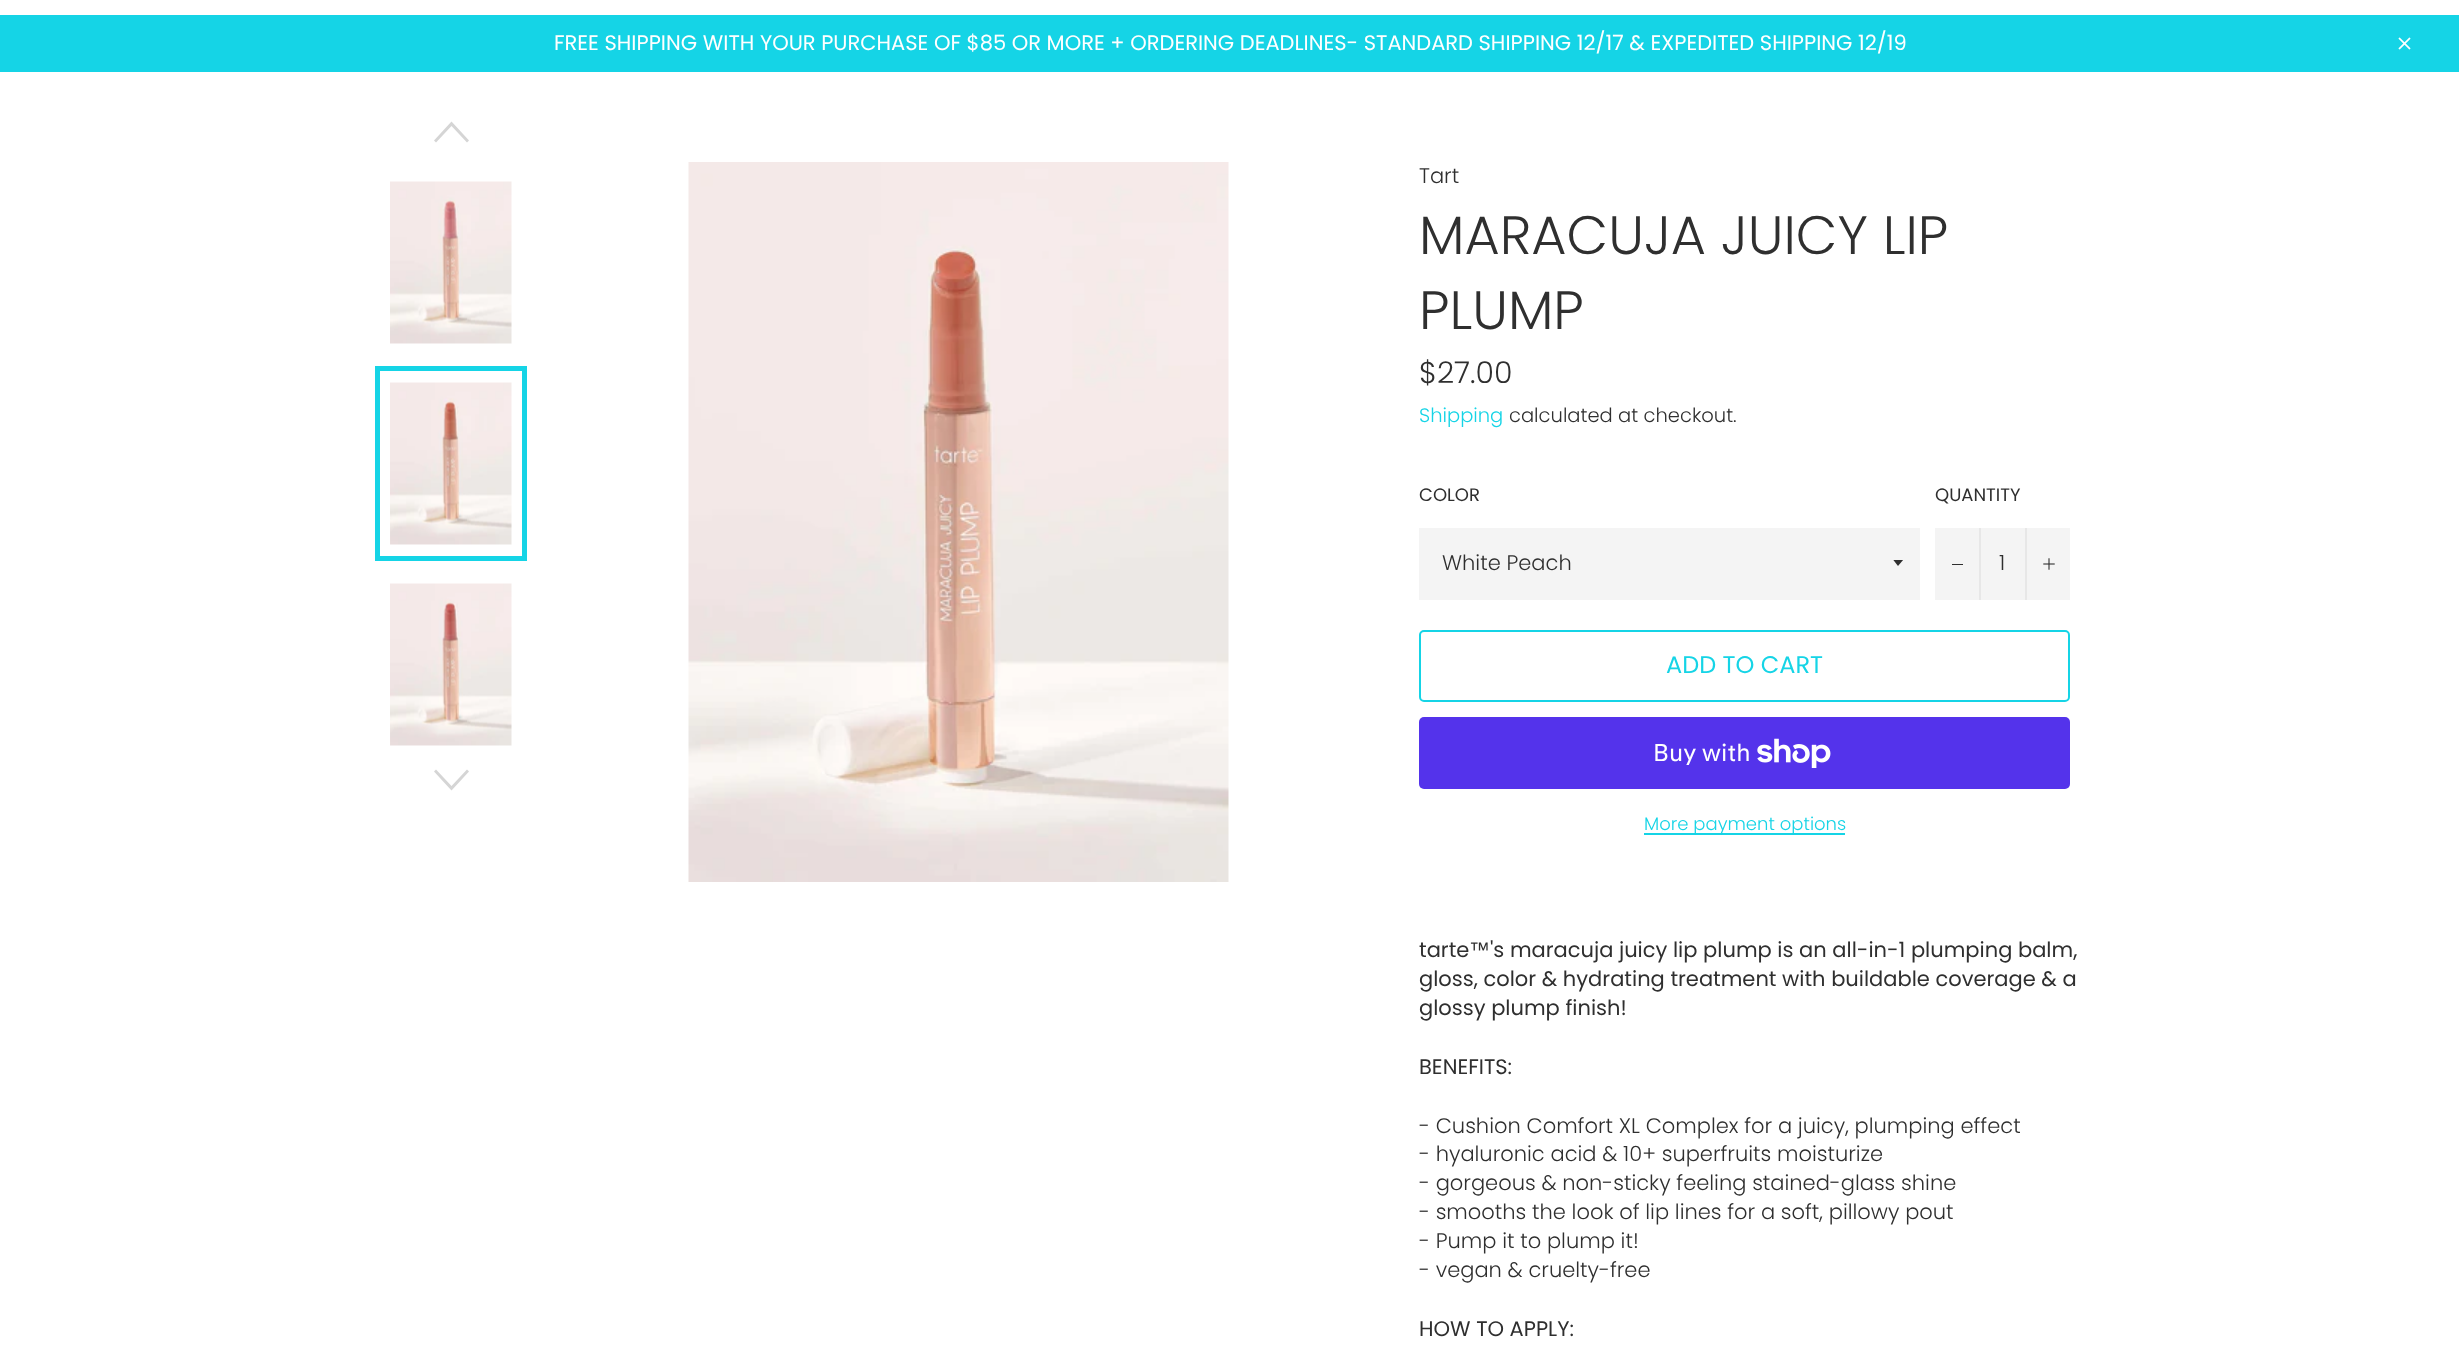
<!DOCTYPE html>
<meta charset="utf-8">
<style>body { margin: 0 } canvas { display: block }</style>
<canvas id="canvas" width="2459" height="1367"></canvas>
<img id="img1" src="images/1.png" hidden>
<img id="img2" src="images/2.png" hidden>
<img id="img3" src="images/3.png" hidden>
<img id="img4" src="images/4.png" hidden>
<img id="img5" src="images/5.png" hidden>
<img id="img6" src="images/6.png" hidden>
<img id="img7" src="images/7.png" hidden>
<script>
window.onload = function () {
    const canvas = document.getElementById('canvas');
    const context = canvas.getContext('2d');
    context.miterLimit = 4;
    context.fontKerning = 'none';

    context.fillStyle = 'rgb(255, 255, 255)';
    context.fillRect(0, 0, 2459, 1367);
    context.fillStyle = 'rgb(21, 212, 230)';
    context.fillRect(0, 15, 2459, 57);
    context.drawImage(document.getElementById('img1'), 2398, 37, 13, 13);
    context.fillStyle = 'rgb(213, 213, 213)';
    context.beginPath();
    context.moveTo(467, 142.5);
    context.lineTo(469, 140.5);
    context.lineTo(451.5, 121.5);
    context.lineTo(434, 140.5);
    context.lineTo(436, 142.5);
    context.lineTo(451.5, 126);
    context.closePath();
    context.fill();
    context.drawImage(document.getElementById('img2'), 390, 181, 122, 163);
    context.drawImage(document.getElementById('img3'), 390, 382, 122, 163);
    context.strokeStyle = 'rgb(21, 212, 230)';
    context.lineWidth = 5;
    context.strokeRect(377.5, 368.5, 147, 190);
    context.drawImage(document.getElementById('img4'), 390, 583, 122, 163);
    context.beginPath();
    context.moveTo(467, 769.5);
    context.lineTo(469, 771.5);
    context.lineTo(451.5, 790.5);
    context.lineTo(434, 771.5);
    context.lineTo(436, 769.5);
    context.lineTo(451.5, 786);
    context.closePath();
    context.fill();
    context.drawImage(document.getElementById('img5'), 688, 162, 541, 720);
    context.fillStyle = 'rgb(244, 244, 244)';
    context.fillRect(1419, 528, 501, 72);
    context.save();
    context.beginPath();
    context.rect(1893, 560, 12, 7);
    context.clip();
    context.fillStyle = 'rgb(47, 47, 47)';
    context.beginPath();
    context.moveTo(1893, 559.5);
    context.lineTo(1898, 566);
    context.lineTo(1903.5, 559.5);
    context.closePath();
    context.fill();
    context.restore();
    context.fillRect(1935, 528, 135, 72);
    context.fillStyle = 'rgb(231, 231, 231)';
    context.fillRect(1979, 528, 2, 72);
    context.fillStyle = 'rgb(47, 47, 47)';
    context.fillRect(1952, 564, 11, 1);
    context.fillStyle = 'rgb(231, 231, 231)';
    context.fillRect(2025, 528, 2, 72);
    context.drawImage(document.getElementById('img6'), 2043, 558, 12, 12);
    context.beginPath();
    context.roundRect(1420, 631, 649, 70, 4);
    context.lineWidth = 2;
    context.stroke();
    context.fillStyle = 'rgb(84, 51, 235)';
    context.beginPath();
    context.roundRect(1419, 717, 651, 72, 5);
    context.fill();
    context.drawImage(document.getElementById('img7'), 1757, 738, 74, 30);
    context.fillStyle = 'rgb(21, 212, 230)';
    context.fillRect(1644, 833, 201, 2);
    context.font = '21px Poppins';
    context.fillStyle = 'rgb(255, 255, 255)';
    context.fillText('FREE SHIPPING WITH YOUR PURCHASE OF $85 OR MORE + ORDERING DEADLINES- STANDARD SHIPPING 12/17 & EXPEDITED SHIPPING 12/19', 554, 50);
    context.font = '300 21px Poppins';
    context.fillStyle = 'rgb(47, 47, 47)';
    context.fillText('Tart', 1419, 183);
    context.font = '300 54px Poppins';
    context.fillText('MARACUJA JUICY LIP', 1419, 254);
    context.fillText('PLUMP', 1419, 329);
    context.font = '300 30px Poppins';
    context.fillText('$27.00', 1419, 383);
    context.font = '300 19.5px Poppins';
    context.fillStyle = 'rgb(21, 212, 230)';
    context.fillText('Shipping', 1419, 422);
    context.fillStyle = 'rgb(47, 47, 47)';
    context.fillText('calculated at checkout.', 1509, 422);
    context.font = '18px Poppins';
    context.fillText('COLOR', 1419, 501);
    context.font = '300 21px Poppins';
    context.fillText('White Peach', 1442, 570);
    context.font = '18px Poppins';
    context.fillText('QUANTITY', 1935, 501);
    context.font = '300 21px Poppins';
    context.fillText('1', 1999, 570);
    context.font = '24px Poppins';
    context.fillStyle = 'rgb(21, 212, 230)';
    context.fillText('ADD TO CART', 1666, 673);
    context.font = '24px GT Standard';
    context.fillStyle = 'rgb(255, 255, 255)';
    context.fillText('Buy with', 1653, 761);
    context.font = '300 18px Poppins';
    context.fillStyle = 'rgb(21, 212, 230)';
    context.fillText('More payment options', 1644, 830);
    context.font = '21px Poppins';
    context.fillStyle = 'rgb(47, 47, 47)';
    context.fillText('tarte', 1419, 957);
    context.font = '21px Liberation Sans';
    context.fillText('™', 1469, 957);
    context.font = '21px Poppins';
    context.fillText('\'s maracuja juicy lip plump is an all-in-1 plumping balm,', 1490, 957);
    context.fillText('gloss, color & hydrating treatment with buildable coverage & a', 1419, 986);
    context.fillText('glossy plump finish!', 1419, 1015);
    context.fillText('BENEFITS:', 1419, 1074);
    context.font = '300 21px Poppins';
    context.fillText('- Cushion Comfort XL Complex for a juicy, plumping effect', 1419, 1133);
    context.fillText('- hyaluronic acid & 10+ superfruits moisturize', 1419, 1161);
    context.fillText('- gorgeous & non-sticky feeling stained-glass shine', 1419, 1190);
    context.fillText('- smooths the look of lip lines for a soft, pillowy pout', 1419, 1219);
    context.fillText('- Pump it to plump it!', 1419, 1248);
    context.fillText('- vegan & cruelty-free', 1419, 1277);
    context.font = '21px Poppins';
    context.fillText('HOW TO APPLY:', 1419, 1336);
};
</script>
